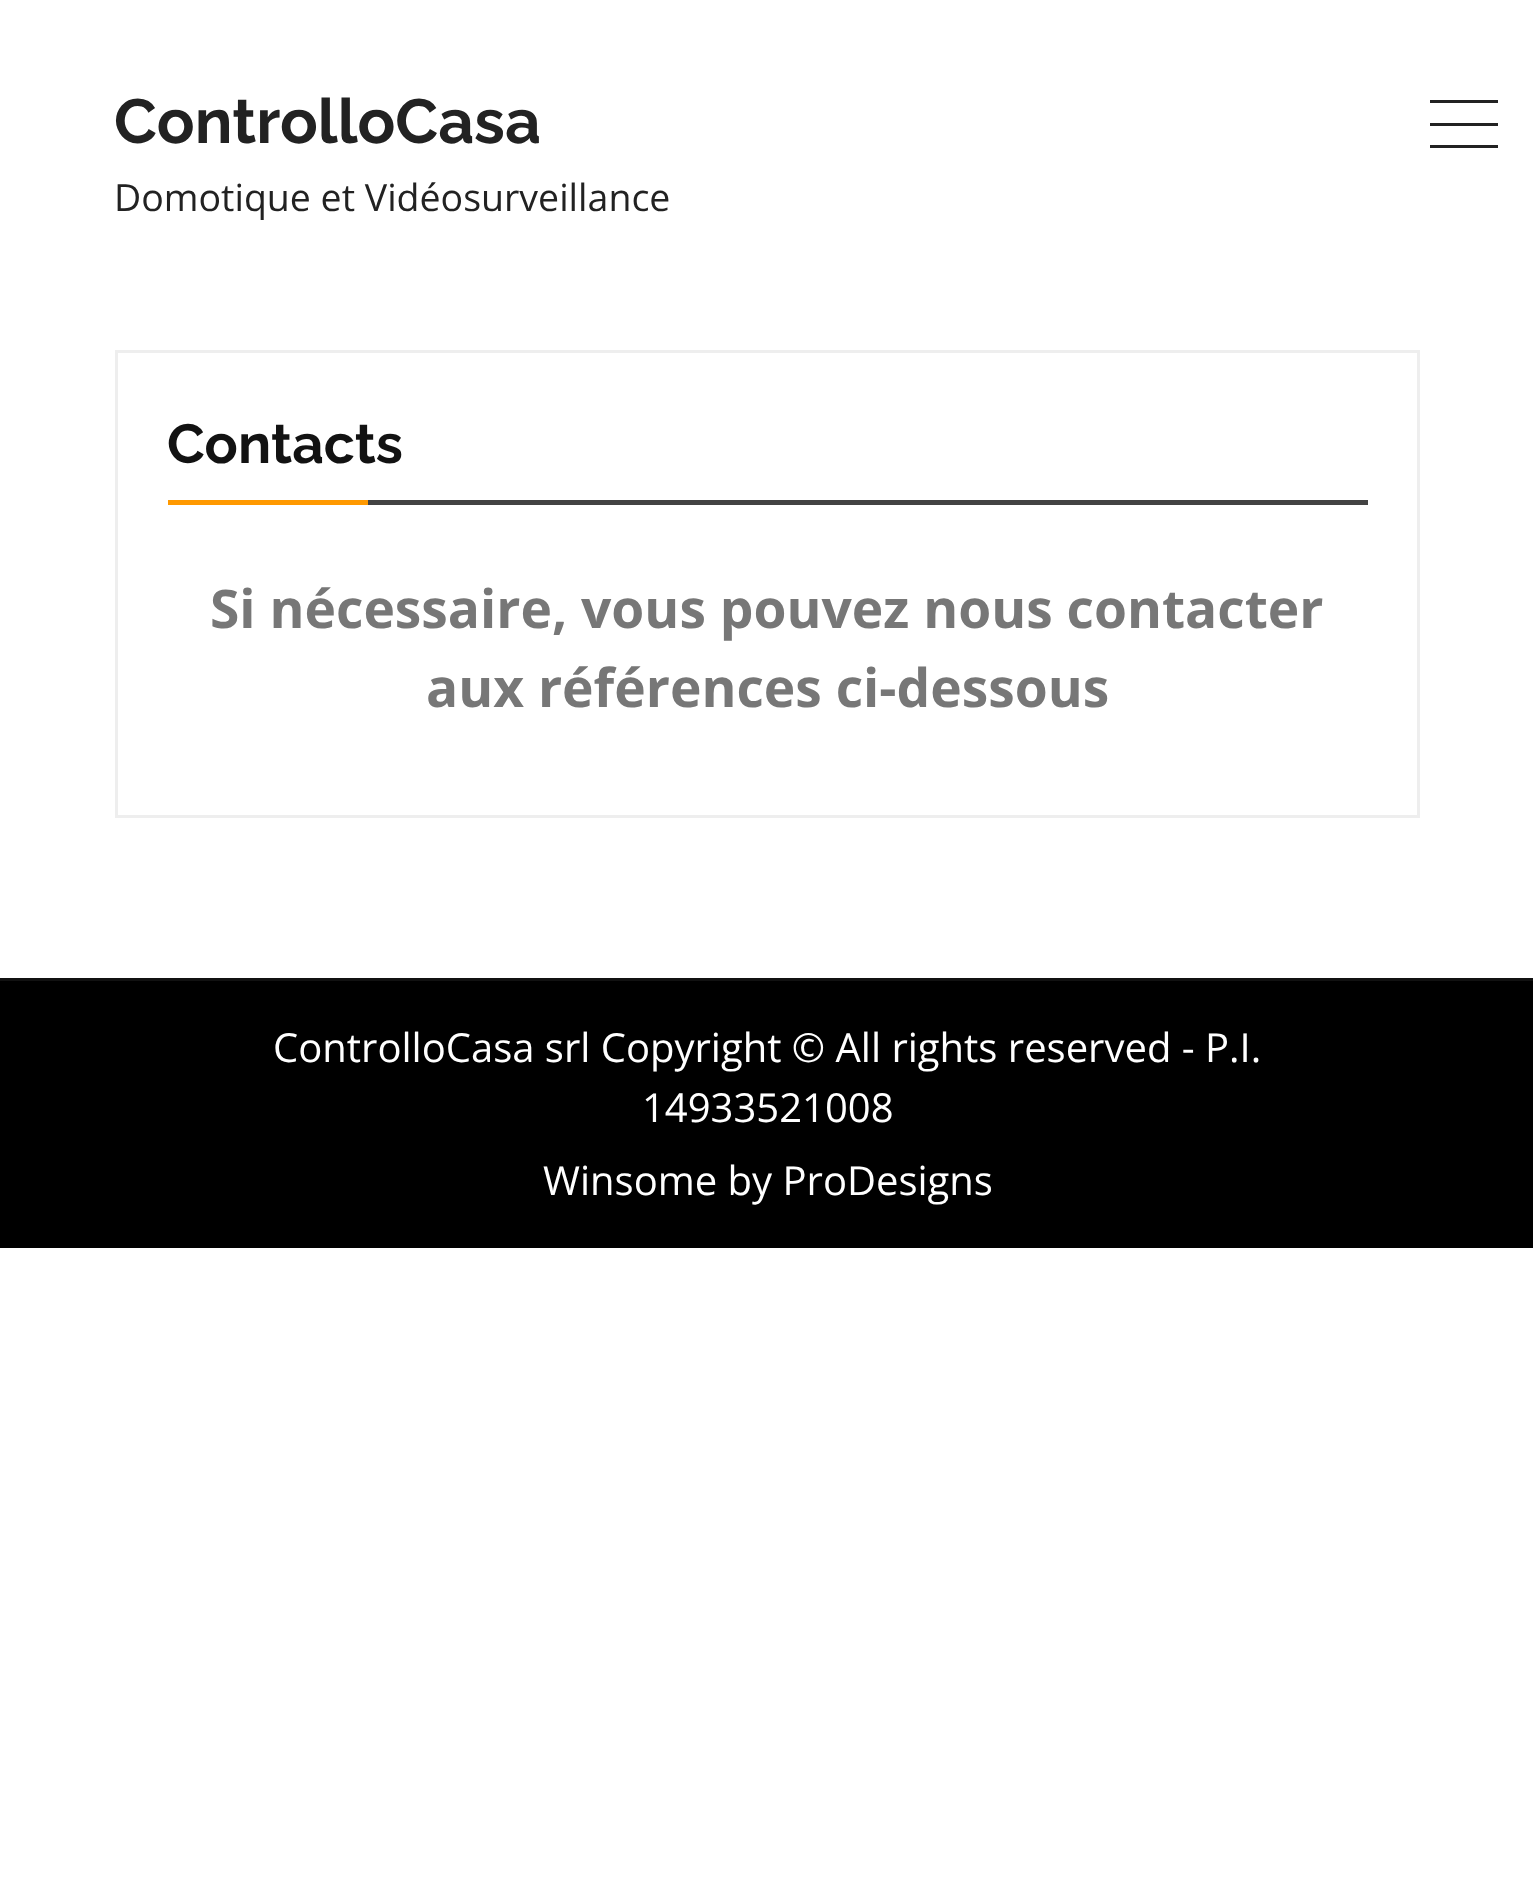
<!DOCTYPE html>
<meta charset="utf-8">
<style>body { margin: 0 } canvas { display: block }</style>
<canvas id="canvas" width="1533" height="1877"></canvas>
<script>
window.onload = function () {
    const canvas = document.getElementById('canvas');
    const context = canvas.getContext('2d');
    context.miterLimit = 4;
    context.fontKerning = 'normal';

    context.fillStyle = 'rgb(255, 255, 255)';
    context.fillRect(0, 0, 1533, 1877);
    context.fillStyle = 'rgb(34, 34, 34)';
    context.fillRect(1430, 100, 68, 3);
    context.fillRect(1430, 123, 68, 3);
    context.fillRect(1430, 145, 68, 3);
    context.strokeStyle = 'rgb(238, 238, 238)';
    context.lineWidth = 3;
    context.strokeRect(116.5, 351.5, 1302, 465);
    context.fillStyle = 'rgb(67, 67, 67)';
    context.fillRect(368, 500, 1000, 5);
    context.fillStyle = 'rgb(255, 153, 0)';
    context.fillRect(168, 500, 200, 5);
    context.fillStyle = 'rgb(0, 0, 0)';
    context.fillRect(0, 981, 1533, 267);
    context.fillStyle = 'rgb(17, 17, 17)';
    context.fillRect(0, 978, 1533, 3);
    context.font = 'bold 62.5px Raleway';
    context.fillStyle = 'rgb(34, 34, 34)';
    context.fillText('ControlloCasa', 114, 143);
    context.font = '37.5px Open Sans';
    context.fillText('Domotique et Vidéosurveillance', 114, 211);
    context.font = 'bold 55px Raleway';
    context.fillStyle = 'rgb(18, 18, 18)';
    context.fillText('Contacts', 167, 463);
    context.font = 'bold 53.3px Open Sans';
    context.fillStyle = 'rgb(119, 119, 119)';
    context.fillText('Si nécessaire, vous pouvez nous contacter', 210, 628);
    context.fillText('aux références ci-dessous', 426, 707);
    context.font = '40px Open Sans';
    context.fillStyle = 'rgb(255, 255, 255)';
    context.fillText('ControlloCasa srl Copyright © All rights reserved - P.I.', 273, 1062);
    context.fillText('14933521008', 642, 1122);
    context.fillText('Winsome by ProDesigns', 543, 1195);
};
</script>
